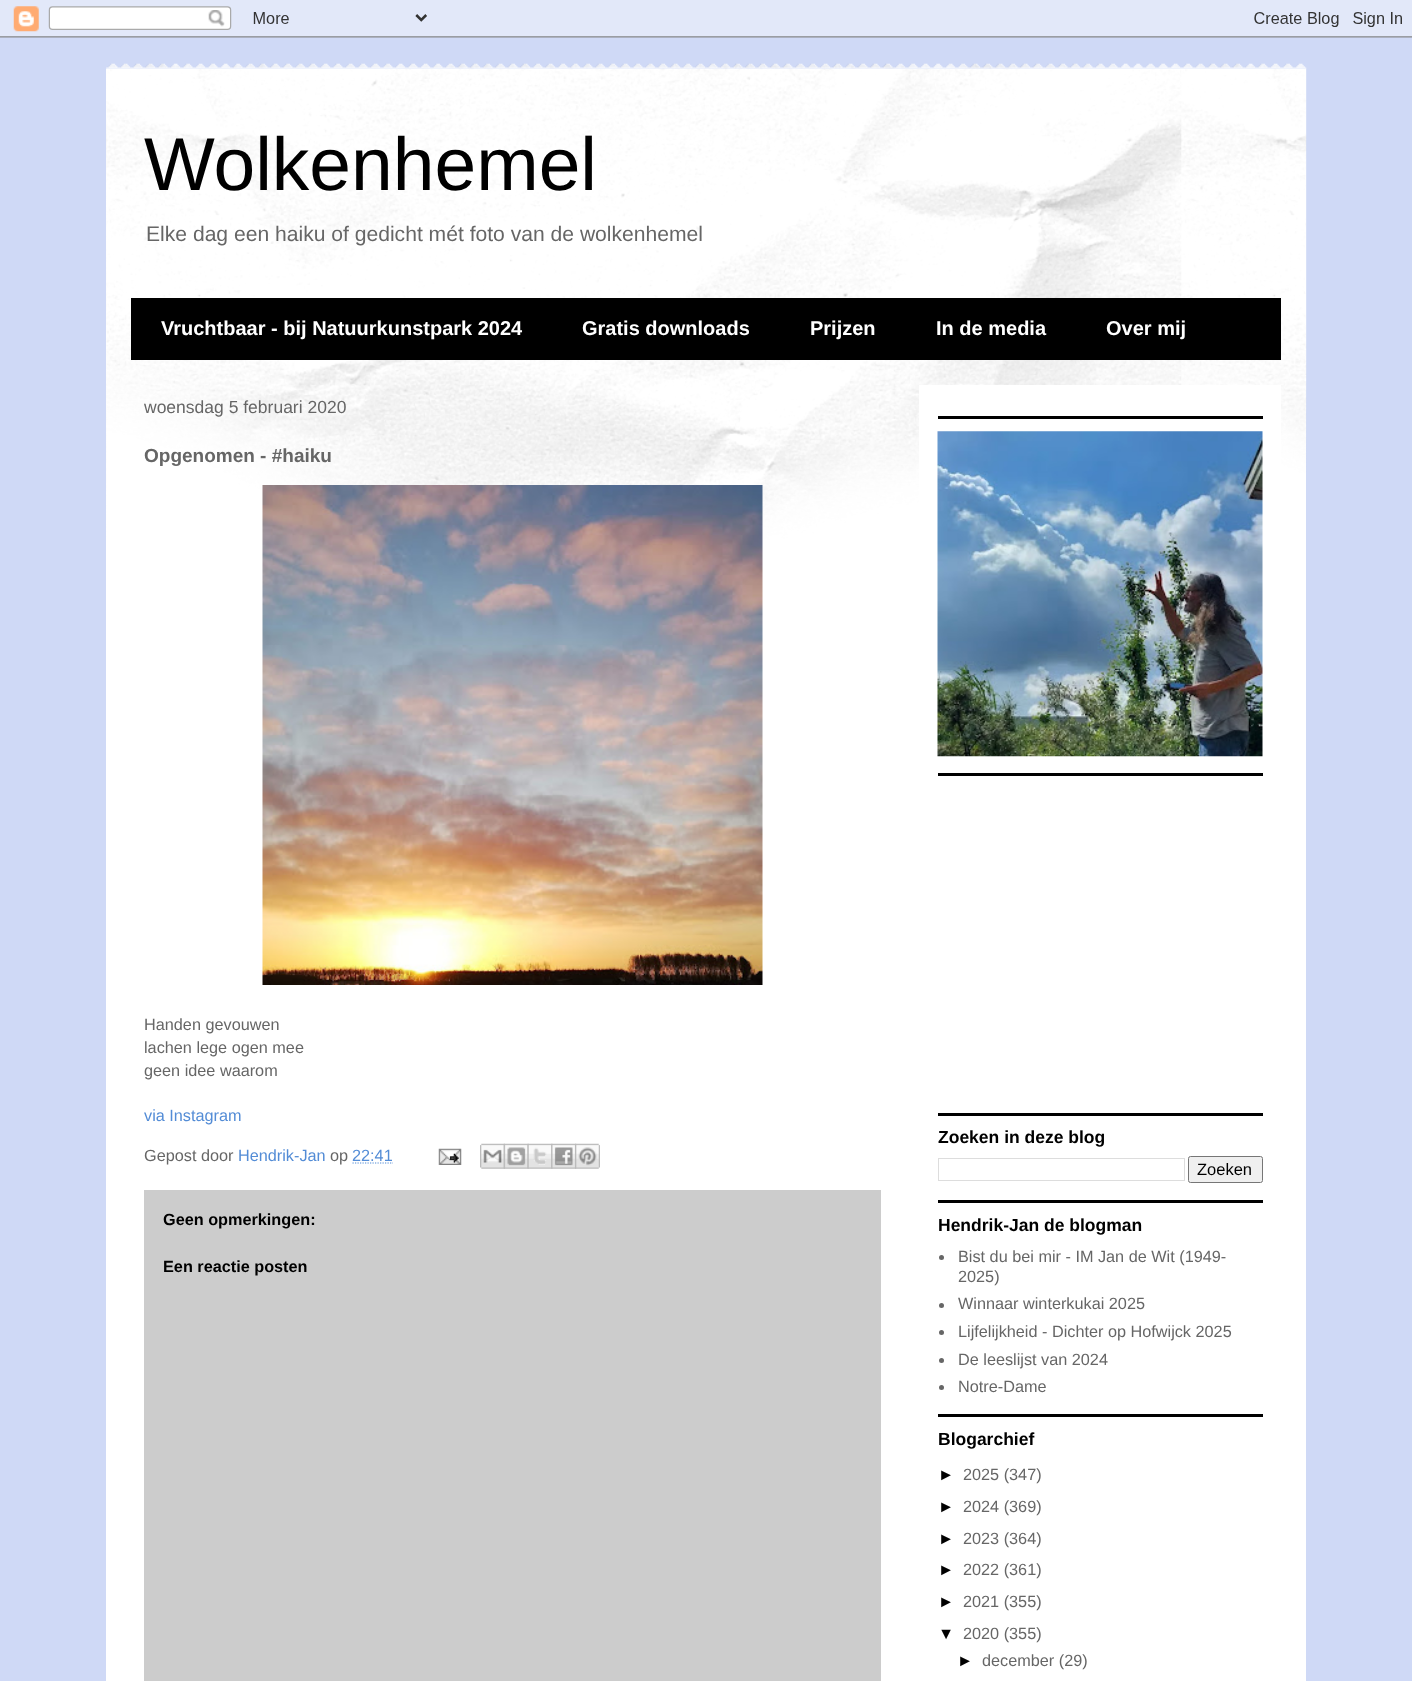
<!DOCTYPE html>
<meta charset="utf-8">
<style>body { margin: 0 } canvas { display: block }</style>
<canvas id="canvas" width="1412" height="1681"></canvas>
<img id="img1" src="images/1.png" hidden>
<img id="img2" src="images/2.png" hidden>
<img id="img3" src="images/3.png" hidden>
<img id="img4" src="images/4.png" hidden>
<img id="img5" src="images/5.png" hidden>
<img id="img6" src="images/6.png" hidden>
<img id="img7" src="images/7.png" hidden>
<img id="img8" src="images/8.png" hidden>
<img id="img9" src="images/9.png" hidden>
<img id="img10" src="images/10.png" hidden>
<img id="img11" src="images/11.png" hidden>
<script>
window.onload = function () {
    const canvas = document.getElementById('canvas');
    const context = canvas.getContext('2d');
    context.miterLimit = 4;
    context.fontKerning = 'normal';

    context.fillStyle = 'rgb(207, 217, 246)';
    context.fillRect(0, 0, 1412, 1681);
    context.drawImage(document.getElementById('img1'), 0, 0, 1412, 38);
    context.drawImage(document.getElementById('img2'), 106, 63, 1201, 6);
    context.fillStyle = 'rgb(255, 255, 255)';
    context.fillRect(106, 69, 1200, 1612);
    context.drawImage(document.getElementById('img3'), 106, 68, 1201, 483);
    context.fillStyle = 'rgb(0, 0, 0)';
    context.fillRect(131, 298, 1150, 62);
    context.fillStyle = 'rgb(255, 255, 255)';
    context.fillRect(919, 385, 362, 135);
    context.drawImage(document.getElementById('img4'), 262, 485, 501, 500);
    context.beginPath();
    context.moveTo(352.5, 1163);
    context.lineTo(393, 1163);
    context.strokeStyle = 'rgb(83, 140, 214)';
    context.lineWidth = 1.2;
    context.setLineDash([1.25, 1.25]);
    context.stroke();
    context.drawImage(document.getElementById('img5'), 438, 1148, 24, 17);
    context.drawImage(document.getElementById('img6'), 480, 1143, 25, 26);
    context.drawImage(document.getElementById('img7'), 503, 1143, 26, 26);
    context.drawImage(document.getElementById('img8'), 527, 1143, 26, 26);
    context.drawImage(document.getElementById('img9'), 551, 1143, 26, 26);
    context.drawImage(document.getElementById('img10'), 575, 1143, 25, 26);
    context.fillStyle = 'rgb(204, 204, 204)';
    context.fillRect(144, 1190, 737, 491);
    context.fillStyle = 'rgb(0, 0, 0)';
    context.fillRect(938, 416, 325, 3);
    context.fillRect(938, 773, 325, 3);
    context.drawImage(document.getElementById('img11'), 937, 431, 326, 326);
    context.fillRect(938, 1113, 325, 3);
    context.fillRect(938, 1200, 325, 3);
    context.strokeStyle = 'rgb(221, 221, 221)';
    context.lineWidth = 1;
    context.setLineDash([]);
    context.strokeRect(938.5, 1158.5, 246, 22);
    context.fillStyle = 'rgb(239, 239, 239)';
    context.beginPath();
    context.roundRect(1188.5, 1156.5, 74, 26, 2);
    context.fill();
    context.strokeStyle = 'rgb(118, 118, 118)';
    context.stroke();
    context.fillStyle = 'rgb(0, 0, 0)';
    context.fillRect(938, 1414, 325, 3);
    context.fillStyle = 'rgb(102, 102, 102)';
    context.beginPath();
    context.arc(941.5, 1257.5, 2.5, 0, 2 * Math.PI);
    context.fill();
    context.beginPath();
    context.arc(941.5, 1305.5, 2.5, 0, 2 * Math.PI);
    context.fill();
    context.beginPath();
    context.arc(941.5, 1332.5, 2.5, 0, 2 * Math.PI);
    context.fill();
    context.beginPath();
    context.arc(941.5, 1360.5, 2.5, 0, 2 * Math.PI);
    context.fill();
    context.beginPath();
    context.arc(941.5, 1387.5, 2.5, 0, 2 * Math.PI);
    context.fill();
    context.font = '75px Liberation Sans';
    context.fillStyle = 'rgb(0, 0, 0)';
    context.fillText('Wolkenhemel', 144, 190);
    context.font = '21.1px Liberation Sans';
    context.fillStyle = 'rgb(102, 102, 102)';
    context.fillText('Elke dag een haiku of gedicht mét foto van de wolkenhemel', 146, 241);
    context.font = 'bold 20px Liberation Sans';
    context.fillStyle = 'rgb(255, 255, 255)';
    context.fillText('Vruchtbaar - bij Natuurkunstpark 2024', 161, 335);
    context.fillText('Gratis downloads', 582, 335);
    context.fillText('Prijzen', 810, 335);
    context.fillText('In de media', 936, 335);
    context.fillText('Over mij', 1106, 335);
    context.font = '17.5px Liberation Sans';
    context.fillStyle = 'rgb(102, 102, 102)';
    context.fillText('woensdag 5 februari 2020', 144, 413);
    context.font = 'bold 19px Liberation Sans';
    context.fillText('Opgenomen - #haiku', 144, 462);
    context.font = '16.25px Liberation Sans';
    context.fillText('Handen gevouwen', 144, 1030);
    context.fillText('lachen lege ogen mee', 144, 1053);
    context.fillText('geen idee waarom', 144, 1076);
    context.fillStyle = 'rgb(83, 140, 214)';
    context.fillText('via Instagram', 144, 1121);
    context.fillStyle = 'rgb(102, 102, 102)';
    context.fillText('Gepost door', 144, 1161);
    context.fillStyle = 'rgb(83, 140, 214)';
    context.fillText('Hendrik-Jan', 238, 1161);
    context.fillStyle = 'rgb(102, 102, 102)';
    context.fillText('op', 330, 1161);
    context.fillStyle = 'rgb(83, 140, 214)';
    context.fillText('22:41', 352, 1161);
    context.font = 'bold 16.25px Liberation Sans';
    context.fillStyle = 'rgb(0, 0, 0)';
    context.fillText('Geen opmerkingen:', 163, 1225);
    context.fillText('Een reactie posten', 163, 1272);
    context.font = 'bold 17.5px Liberation Sans';
    context.fillText('Zoeken in deze blog', 938, 1143);
    context.font = '16.5px Liberation Sans';
    context.fillText('Zoeken', 1197, 1175);
    context.font = 'bold 17.5px Liberation Sans';
    context.fillText('Hendrik-Jan de blogman', 938, 1231);
    context.font = '16.25px Liberation Sans';
    context.fillStyle = 'rgb(102, 102, 102)';
    context.fillText('Bist du bei mir - IM Jan de Wit (1949-', 958, 1262);
    context.fillText('2025)', 958, 1282);
    context.fillText('Winnaar winterkukai 2025', 958, 1309);
    context.fillText('Lijfelijkheid - Dichter op Hofwijck 2025', 958, 1337);
    context.fillText('De leeslijst van 2024', 958, 1365);
    context.fillText('Notre-Dame', 958, 1392);
    context.font = 'bold 17.5px Liberation Sans';
    context.fillStyle = 'rgb(0, 0, 0)';
    context.fillText('Blogarchief', 938, 1445);
    context.font = '16.25px Liberation Sans';
    context.fillText('►', 938, 1480);
    context.fillStyle = 'rgb(102, 102, 102)';
    context.fillText('2025 (347)', 963, 1480);
    context.fillStyle = 'rgb(0, 0, 0)';
    context.fillText('►', 938, 1512);
    context.fillStyle = 'rgb(102, 102, 102)';
    context.fillText('2024 (369)', 963, 1512);
    context.fillStyle = 'rgb(0, 0, 0)';
    context.fillText('►', 938, 1544);
    context.fillStyle = 'rgb(102, 102, 102)';
    context.fillText('2023 (364)', 963, 1544);
    context.fillStyle = 'rgb(0, 0, 0)';
    context.fillText('►', 938, 1575);
    context.fillStyle = 'rgb(102, 102, 102)';
    context.fillText('2022 (361)', 963, 1575);
    context.fillStyle = 'rgb(0, 0, 0)';
    context.fillText('►', 938, 1607);
    context.fillStyle = 'rgb(102, 102, 102)';
    context.fillText('2021 (355)', 963, 1607);
    context.fillStyle = 'rgb(0, 0, 0)';
    context.fillText('▼', 938, 1639);
    context.fillStyle = 'rgb(102, 102, 102)';
    context.fillText('2020 (355)', 963, 1639);
    context.fillStyle = 'rgb(0, 0, 0)';
    context.fillText('►', 957, 1666);
    context.fillStyle = 'rgb(102, 102, 102)';
    context.fillText('december (29)', 982, 1666);
};
</script>
